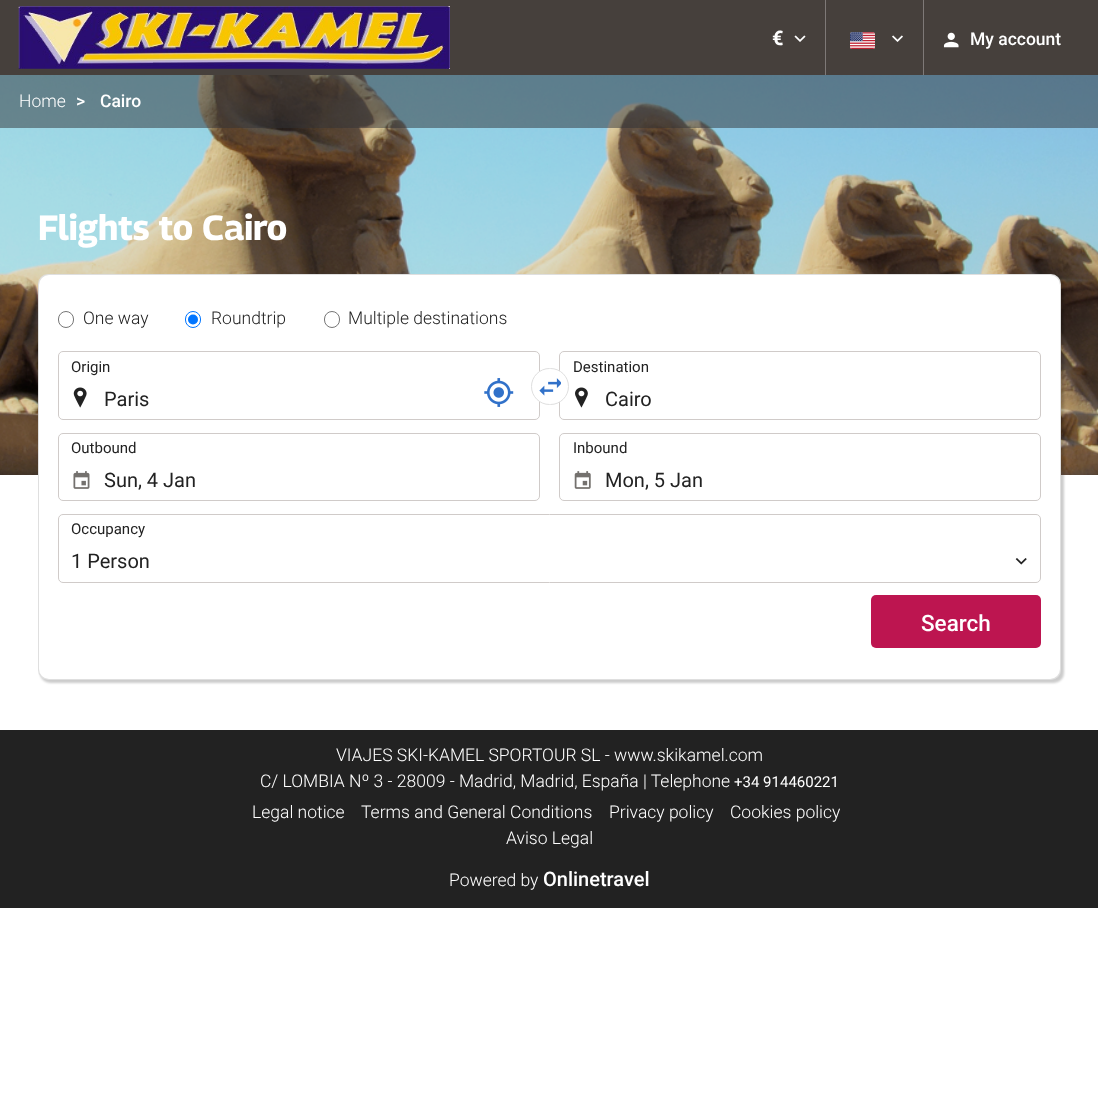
<!DOCTYPE html>
<meta charset="utf-8">
<style>body { margin: 0 } canvas { display: block }</style>
<canvas id="canvas" width="1098" height="1101"></canvas>
<img id="img1" src="images/1.png" hidden>
<img id="img2" src="images/2.png" hidden>
<img id="img3" src="images/3.png" hidden>
<img id="img4" src="images/4.png" hidden>
<img id="img5" src="images/5.png" hidden>
<img id="img6" src="images/6.png" hidden>
<img id="img7" src="images/7.png" hidden>
<img id="img8" src="images/8.png" hidden>
<img id="img9" src="images/10.png" hidden>
<img id="img10" src="images/9.png" hidden>
<img id="img11" src="images/11.png" hidden>
<img id="img12" src="images/12.png" hidden>
<img id="img13" src="images/13.png" hidden>
<script>
window.onload = function () {
    const canvas = document.getElementById('canvas');
    const context = canvas.getContext('2d');
    context.miterLimit = 4;
    context.fontKerning = 'normal';

    context.fillStyle = 'rgb(255, 255, 255)';
    context.fillRect(0, 0, 1098, 1101);
    context.fillStyle = 'rgb(70, 64, 60)';
    context.fillRect(0, 0, 1098, 75);
    context.drawImage(document.getElementById('img1'), 18, 6, 432, 63);
    context.fillStyle = 'rgb(126, 121, 119)';
    context.fillRect(825, 0, 1, 75);
    context.drawImage(document.getElementById('img2'), 794, 35, 12, 7);
    context.fillRect(923, 0, 1, 75);
    context.drawImage(document.getElementById('img3'), 850, 32, 25, 17);
    context.drawImage(document.getElementById('img4'), 892, 35, 11, 7);
    context.drawImage(document.getElementById('img5'), 943, 32, 16, 16);
    context.drawImage(document.getElementById('img6'), 0, 75, 1098, 400);
    context.fillStyle = 'rgba(48, 50, 53, 0.5)';
    context.fillRect(0, 75, 1098, 53);
    context.fillStyle = 'rgba(0, 0, 0, 0.2)';
    context.filter = 'blur(1px)';
    context.beginPath();
    context.roundRect(40, 276, 1024, 407, 10);
    context.fill();
    context.filter = 'none';
    context.fillStyle = 'rgb(223, 223, 223)';
    context.beginPath();
    context.roundRect(38, 274, 1023, 406, 10);
    context.fill();
    context.fillStyle = 'rgb(255, 255, 255)';
    context.beginPath();
    context.roundRect(39, 275, 1021, 404, 10);
    context.fill();
    context.beginPath();
    context.roundRect(58.5, 311.5, 15, 16, 7.5);
    context.strokeStyle = 'rgb(118, 118, 118)';
    context.stroke();
    context.beginPath();
    context.roundRect(185.5, 311.5, 15, 16, 7.5);
    context.strokeStyle = 'rgb(0, 117, 255)';
    context.stroke();
    context.fillStyle = 'rgb(0, 117, 255)';
    context.beginPath();
    context.arc(193, 319.5, 5, 0, 2 * Math.PI);
    context.fill();
    context.beginPath();
    context.roundRect(324.5, 311.5, 15, 16, 7.5);
    context.strokeStyle = 'rgb(118, 118, 118)';
    context.stroke();
    context.drawImage(document.getElementById('img7'), 73, 387, 14, 21);
    context.beginPath();
    context.roundRect(58.5, 351.5, 481, 68, 4.5);
    context.strokeStyle = 'rgb(208, 203, 201)';
    context.stroke();
    context.drawImage(document.getElementById('img8'), 484, 378, 30, 29);
    context.drawImage(document.getElementById('img9'), 575, 387, 13, 21);
    context.beginPath();
    context.roundRect(559.5, 351.5, 481, 68, 4.5);
    context.stroke();
    context.fillStyle = 'rgb(255, 255, 255)';
    context.beginPath();
    context.roundRect(531.5, 368.5, 37, 36, 18);
    context.fill();
    context.strokeStyle = 'rgb(223, 223, 223)';
    context.stroke();
    context.drawImage(document.getElementById('img10'), 539, 378, 22, 18);
    context.drawImage(document.getElementById('img11'), 73, 471, 17, 18);
    context.beginPath();
    context.roundRect(58.5, 433.5, 481, 67, 4.5);
    context.strokeStyle = 'rgb(208, 203, 201)';
    context.stroke();
    context.drawImage(document.getElementById('img12'), 574, 471, 17, 18);
    context.beginPath();
    context.roundRect(559.5, 433.5, 481, 67, 4.5);
    context.stroke();
    context.beginPath();
    context.roundRect(58.5, 514.5, 982, 68, 4.5);
    context.stroke();
    context.drawImage(document.getElementById('img13'), 1015, 558, 12, 7);
    context.fillStyle = 'rgb(189, 21, 80)';
    context.beginPath();
    context.roundRect(871, 595, 170, 53, 5);
    context.fill();
    context.fillStyle = 'rgb(34, 34, 34)';
    context.fillRect(0, 730, 1098, 178);
    context.font = 'bold 20px Roboto';
    context.fillStyle = 'rgb(255, 255, 255)';
    context.fillText('€', 772, 45);
    context.font = '500 17.5px Roboto';
    context.fillText('My account', 970, 45);
    context.font = '300 17.5px Roboto';
    context.fillText('Home', 19, 107);
    context.font = '500 17.5px Roboto';
    context.fillText('>', 76, 107);
    context.fillText('Cairo', 100, 107);
    context.font = 'bold 35px Georama';
    context.fillText('Flights to Cairo', 38, 240);
    context.font = '300 17.5px Roboto';
    context.fillStyle = 'rgb(34, 34, 34)';
    context.fillText('One way', 83, 324);
    context.fillText('Roundtrip', 211, 324);
    context.fillText('Multiple destinations', 348, 324);
    context.font = '15px Roboto';
    context.fillText('Origin', 71, 372);
    context.font = '20px Roboto';
    context.fillText('Paris', 104, 406);
    context.font = '15px Roboto';
    context.fillText('Destination', 573, 372);
    context.font = '20px Roboto';
    context.fillText('Cairo', 605, 406);
    context.font = '15px Roboto';
    context.fillText('Outbound', 71, 453);
    context.font = '20px Roboto';
    context.fillText('Sun, 4 Jan', 104, 487);
    context.font = '15px Roboto';
    context.fillText('Inbound', 573, 453);
    context.font = '20px Roboto';
    context.fillText('Mon, 5 Jan', 605, 487);
    context.font = '15px Roboto';
    context.fillText('Occupancy', 71, 534);
    context.font = '20px Roboto';
    context.fillText('1 Person', 71, 568);
    context.font = '500 22.5px Roboto';
    context.fillStyle = 'rgb(255, 255, 255)';
    context.fillText('Search', 921, 631);
    context.font = '300 17.5px Roboto';
    context.fillText('VIAJES SKI-KAMEL SPORTOUR SL - www.skikamel.com', 336, 761);
    context.fillText('C/ LOMBIA Nº 3 - 28009 - Madrid, Madrid, España | Telephone', 260, 787);
    context.font = '15px Roboto';
    context.fillText('+34 914460221', 734, 787);
    context.font = '300 17.5px Roboto';
    context.fillText('Legal notice', 252, 818);
    context.fillText('Terms and General Conditions', 361, 818);
    context.fillText('Privacy policy', 609, 818);
    context.fillText('Cookies policy', 730, 818);
    context.fillText('Aviso Legal', 506, 844);
    context.fillText('Powered by', 449, 886);
    context.font = '500 20px Roboto';
    context.fillText('Onlinetravel', 543, 886);
};
</script>
